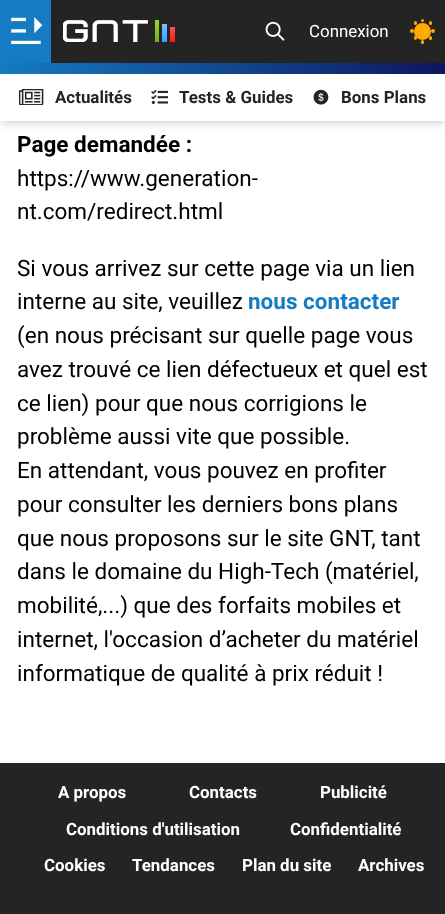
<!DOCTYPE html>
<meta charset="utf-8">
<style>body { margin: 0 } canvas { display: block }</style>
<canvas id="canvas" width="445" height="914"></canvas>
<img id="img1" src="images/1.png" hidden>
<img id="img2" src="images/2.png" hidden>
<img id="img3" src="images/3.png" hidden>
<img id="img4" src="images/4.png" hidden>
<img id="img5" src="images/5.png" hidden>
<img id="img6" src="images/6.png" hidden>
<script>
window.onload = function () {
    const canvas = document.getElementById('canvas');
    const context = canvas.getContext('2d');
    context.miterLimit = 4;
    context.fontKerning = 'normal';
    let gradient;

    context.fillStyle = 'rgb(255, 255, 255)';
    context.fillRect(0, 0, 445, 914);
    context.fillStyle = 'rgba(0, 0, 0, 0.1)';
    context.filter = 'blur(2.5px)';
    context.beginPath();
    context.rect(3, 5, 440, 116);
    context.fill();
    context.filter = 'none';
    context.filter = 'blur(4px)';
    context.beginPath();
    context.rect(1, 6, 443, 119);
    context.fill();
    context.filter = 'none';
    context.fillStyle = 'rgb(36, 36, 36)';
    context.fillRect(51, 0, 394, 63);
    context.fillStyle = 'rgb(21, 123, 194)';
    context.fillRect(0, 0, 51, 63);
    context.drawImage(document.getElementById('img1'), 11, 17, 32, 28);
    context.drawImage(document.getElementById('img2'), 63, 20, 112, 22);
    context.drawImage(document.getElementById('img3'), 265, 21, 20, 20);
    context.fillStyle = 'rgb(255, 170, 0)';
    context.beginPath();
    context.roundRect(429, 21, 3, 4, 1.5);
    context.fill();
    context.beginPath();
    context.moveTo(415.5, 36);
    context.bezierCurveTo(413, 36, 414, 41.5, 416.5, 39.5);
    context.bezierCurveTo(417, 39, 417, 38, 417, 37.5);
    context.closePath();
    context.fill();
    context.beginPath();
    context.roundRect(429, 36, 3, 4, 1.5);
    context.fill();
    context.beginPath();
    context.roundRect(414, 21, 3, 4, 1.5);
    context.fill();
    context.beginPath();
    context.roundRect(421, 40, 3, 4, 1.5);
    context.fill();
    context.beginPath();
    context.arc(422.5, 20.5, 1.5, 0, 2 * Math.PI);
    context.fill();
    context.beginPath();
    context.arc(433, 31, 2, 0, 2 * Math.PI);
    context.fill();
    context.beginPath();
    context.arc(412, 31, 2, 0, 2 * Math.PI);
    context.fill();
    context.beginPath();
    context.arc(422.5, 31.5, 8.5, 0, 2 * Math.PI);
    context.fill();
    gradient = context.createLinearGradient(0, 68, 445, 68);
    gradient.addColorStop(0, 'rgb(21, 123, 194)');
    gradient.addColorStop(1, 'rgb(14, 22, 95)');
    context.fillStyle = gradient;
    context.fillRect(0, 63, 445, 11);
    context.fillStyle = 'rgb(255, 255, 255)';
    context.fillRect(0, 74, 445, 47);
    context.drawImage(document.getElementById('img4'), 19, 89, 25, 16);
    context.drawImage(document.getElementById('img5'), 151, 89, 17, 15);
    context.drawImage(document.getElementById('img6'), 313, 89, 16, 16);
    context.fillStyle = 'rgb(36, 36, 36)';
    context.fillRect(0, 763, 445, 151);
    context.font = '16.9px Roboto';
    context.fillStyle = 'rgb(255, 255, 255)';
    context.fillText('Connexion', 309, 37);
    context.font = 'bold 16.9px Roboto';
    context.fillStyle = 'rgb(36, 36, 36)';
    context.fillText('Actualités', 55, 103);
    context.fillText('Tests & Guides', 179, 103);
    context.fillText('Bons Plans', 341, 103);
    context.font = 'bold 22.5px Roboto';
    context.fillStyle = 'rgb(0, 0, 0)';
    context.fillText('Page demandée :', 17, 152);
    context.font = '22.5px Roboto';
    context.fillText('https://www.generation-', 17, 186);
    context.fillText('nt.com/redirect.html', 17, 219);
    context.fillText('Si vous arrivez sur cette page via un lien', 17, 276);
    context.fillText('interne au site, veuillez', 17, 309);
    context.font = 'bold 22.5px Roboto';
    context.fillStyle = 'rgb(21, 123, 194)';
    context.fillText('nous contacter', 248, 309);
    context.font = '22.5px Roboto';
    context.fillStyle = 'rgb(0, 0, 0)';
    context.fillText('(en nous précisant sur quelle page vous', 17, 343);
    context.fillText('avez trouvé ce lien défectueux et quel est', 17, 377);
    context.fillText('ce lien) pour que nous corrigions le', 17, 411);
    context.fillText('problème aussi vite que possible.', 17, 444);
    context.fillText('En attendant, vous pouvez en profiter', 17, 478);
    context.fillText('pour consulter les derniers bons plans', 17, 512);
    context.fillText('que nous proposons sur le site GNT, tant', 17, 546);
    context.fillText('dans le domaine du High-Tech (matériel,', 17, 579);
    context.fillText('mobilité,...) que des forfaits mobiles et', 17, 613);
    context.fillText('internet, l\'occasion d’acheter du matériel', 17, 647);
    context.fillText('informatique de qualité à prix réduit !', 17, 681);
    context.font = 'bold 16.9px Roboto';
    context.fillStyle = 'rgb(255, 255, 255)';
    context.fillText('A propos', 58, 798);
    context.fillText('Contacts', 189, 798);
    context.fillText('Publicité', 320, 798);
    context.fillText('Conditions d\'utilisation', 66, 835);
    context.fillText('Confidentialité', 290, 835);
    context.fillText('Cookies', 44, 871);
    context.fillText('Tendances', 132, 871);
    context.fillText('Plan du site', 242, 871);
    context.fillText('Archives', 358, 871);
};
</script>
